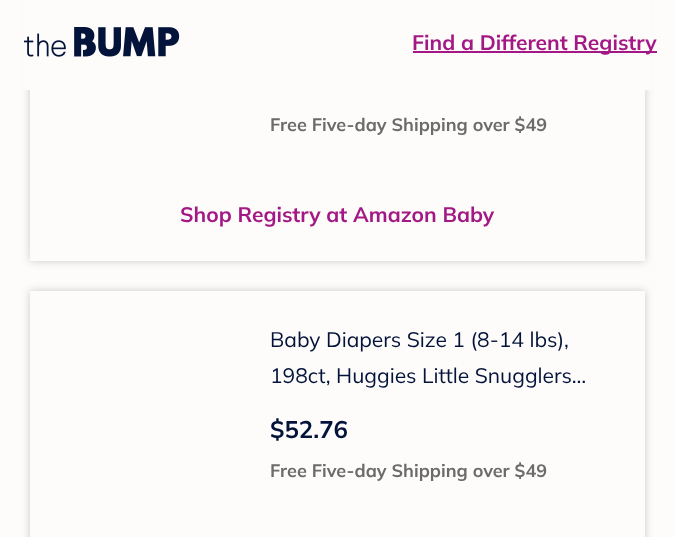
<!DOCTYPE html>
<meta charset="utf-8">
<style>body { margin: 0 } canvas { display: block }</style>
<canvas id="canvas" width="675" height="537"></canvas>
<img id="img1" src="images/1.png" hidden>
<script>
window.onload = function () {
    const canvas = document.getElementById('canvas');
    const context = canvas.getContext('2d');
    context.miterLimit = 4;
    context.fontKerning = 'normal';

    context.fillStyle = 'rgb(253, 252, 250)';
    context.fillRect(0, 0, 675, 537);
    context.save();
    context.beginPath();
    context.moveTo(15, 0);
    context.lineTo(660, 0);
    context.lineTo(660, 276);
    context.lineTo(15, 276);
    context.closePath();
    context.moveTo(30, -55);
    context.lineTo(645, -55);
    context.lineTo(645, 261);
    context.lineTo(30, 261);
    context.closePath();
    context.clip('evenodd');
    context.fillStyle = 'rgba(0, 0, 0, 0.2)';
    context.filter = 'blur(4.5px)';
    context.beginPath();
    context.rect(30, -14, 615, 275);
    context.fill();
    context.filter = 'none';
    context.restore();
    context.fillRect(23, 0, 629, 90);
    context.drawImage(document.getElementById('img1'), 24, 27, 156, 30);
    context.fillStyle = 'rgb(163, 24, 132)';
    context.fillRect(413, 51, 244, 2);
    context.save();
    context.beginPath();
    context.moveTo(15, 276);
    context.lineTo(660, 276);
    context.lineTo(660, 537);
    context.lineTo(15, 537);
    context.closePath();
    context.moveTo(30, 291);
    context.lineTo(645, 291);
    context.lineTo(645, 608);
    context.lineTo(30, 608);
    context.closePath();
    context.clip('evenodd');
    context.fillStyle = 'rgba(0, 0, 0, 0.2)';
    context.filter = 'blur(4.5px)';
    context.beginPath();
    context.rect(30, 291, 615, 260);
    context.fill();
    context.filter = 'none';
    context.restore();
    context.font = '200 21px Mulish';
    context.fillText('Find a Different Registry', 412, 50);
    context.font = '200 18px Mulish';
    context.fillStyle = 'rgb(108, 107, 107)';
    context.fillText('Free Five-day Shipping over $49', 270, 131);
    context.font = '200 21px Mulish';
    context.fillStyle = 'rgb(163, 24, 132)';
    context.fillText('Shop Registry at Amazon Baby', 180, 222);
    context.font = '200 21px "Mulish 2"';
    context.fillStyle = 'rgb(4, 19, 58)';
    context.fillText('Baby Diapers Size 1 (8-14 lbs),', 270, 347);
    context.fillText('198ct, Huggies Little Snugglers…', 270, 383);
    context.font = '200 24px Mulish';
    context.fillText('$52.76', 270, 438);
    context.font = '200 18px Mulish';
    context.fillStyle = 'rgb(108, 107, 107)';
    context.fillText('Free Five-day Shipping over $49', 270, 477);
};
</script>
